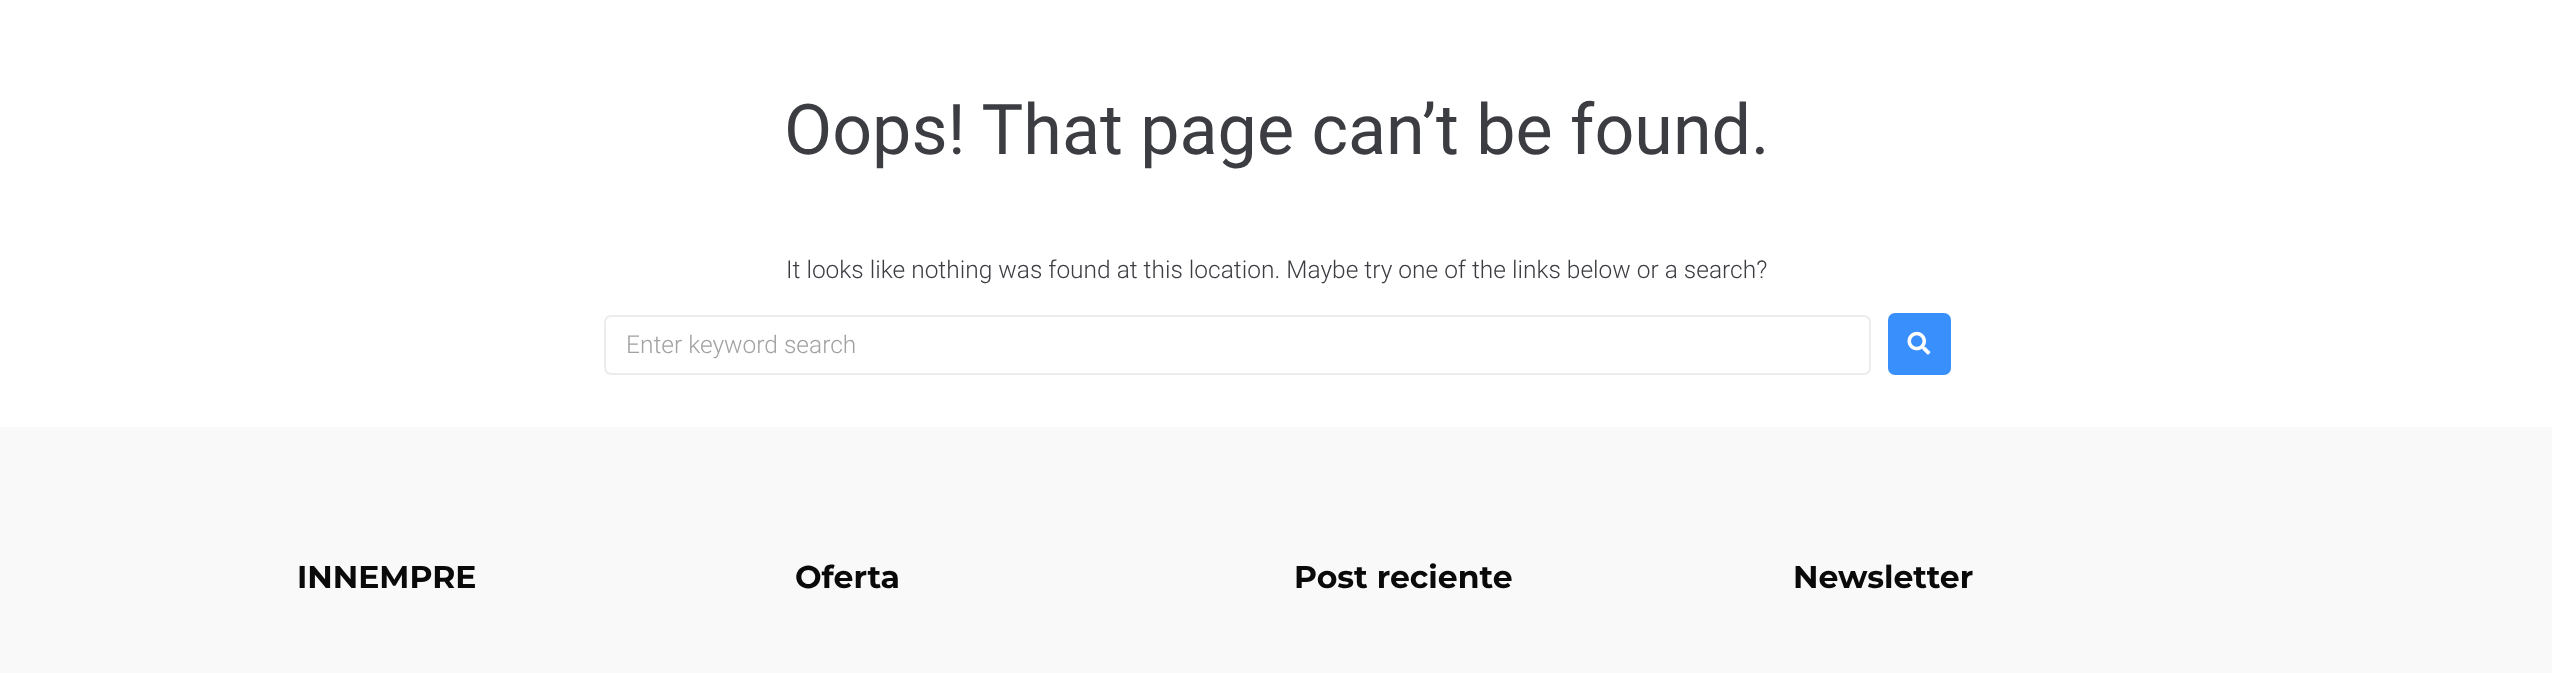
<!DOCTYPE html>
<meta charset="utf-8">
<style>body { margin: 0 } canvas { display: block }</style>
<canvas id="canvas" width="2552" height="673"></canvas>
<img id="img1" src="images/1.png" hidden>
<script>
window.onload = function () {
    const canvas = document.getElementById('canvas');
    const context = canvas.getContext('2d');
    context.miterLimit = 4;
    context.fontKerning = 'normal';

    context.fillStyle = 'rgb(255, 255, 255)';
    context.fillRect(0, 0, 2552, 673);
    context.beginPath();
    context.roundRect(605, 316, 1265, 58, 6);
    context.strokeStyle = 'rgb(235, 236, 237)';
    context.lineWidth = 2;
    context.stroke();
    context.fillStyle = 'rgb(57, 143, 252)';
    context.beginPath();
    context.roundRect(1888, 313, 63, 62, 7);
    context.fill();
    context.drawImage(document.getElementById('img1'), 1907, 331, 24, 24);
    context.fillStyle = 'rgb(249, 249, 249)';
    context.fillRect(0, 427, 2552, 246);
    context.font = '70px Roboto';
    context.fillStyle = 'rgb(59, 61, 66)';
    context.fillText('Oops! That page can’t be found.', 784, 154);
    context.font = '300 24.5px Roboto';
    context.fillText('It looks like nothing was found at this location. Maybe try one of the links below or a search?', 786, 278);
    context.fillStyle = 'rgb(161, 162, 164)';
    context.fillText('Enter keyword search', 626, 353);
    context.font = 'bold 31.5px Montserrat';
    context.fillStyle = 'rgb(10, 10, 10)';
    context.fillText('INNEMPRE', 297, 588);
    context.fillText('Oferta', 795, 588);
    context.fillText('Post reciente', 1294, 588);
    context.fillText('Newsletter', 1793, 588);
};
</script>
